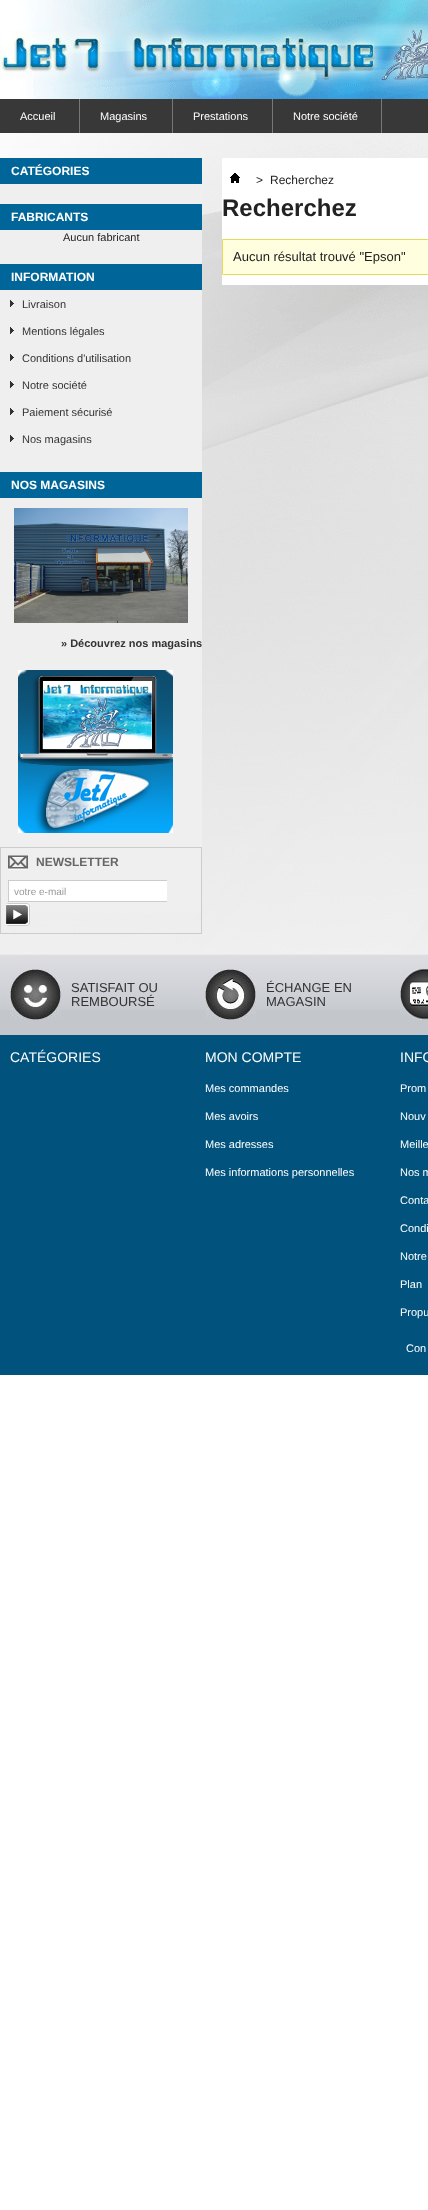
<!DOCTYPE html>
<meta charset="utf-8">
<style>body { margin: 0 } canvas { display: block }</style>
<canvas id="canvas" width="428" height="2210"></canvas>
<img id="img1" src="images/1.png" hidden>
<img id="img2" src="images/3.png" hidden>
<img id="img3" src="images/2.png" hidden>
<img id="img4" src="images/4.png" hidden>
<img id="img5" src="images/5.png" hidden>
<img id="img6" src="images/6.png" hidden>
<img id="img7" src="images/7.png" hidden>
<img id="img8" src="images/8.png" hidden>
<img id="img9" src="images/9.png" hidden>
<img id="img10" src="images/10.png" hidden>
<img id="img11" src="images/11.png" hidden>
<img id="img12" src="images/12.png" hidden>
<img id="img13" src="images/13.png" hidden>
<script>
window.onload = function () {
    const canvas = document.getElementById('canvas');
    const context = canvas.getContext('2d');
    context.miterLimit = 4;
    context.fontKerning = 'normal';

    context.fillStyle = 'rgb(255, 255, 255)';
    context.fillRect(0, 0, 428, 2210);
    context.drawImage(document.getElementById('img1'), 0, 133, 428, 821);
    context.drawImage(document.getElementById('img2'), 0, 0, 428, 99);
    context.drawImage(document.getElementById('img3'), 0, 30, 428, 50);
    context.fillStyle = 'rgb(56, 56, 56)';
    context.fillRect(0, 99, 428, 34);
    context.fillStyle = 'rgb(119, 119, 119)';
    context.fillRect(79, 99, 1, 34);
    context.fillRect(172, 99, 1, 34);
    context.fillRect(272, 99, 1, 34);
    context.fillRect(381, 99, 1, 34);
    context.fillStyle = 'rgb(239, 239, 239)';
    context.fillRect(0, 184, 202, 729);
    context.fillStyle = 'rgb(0, 102, 153)';
    context.fillRect(0, 158, 202, 26);
    context.fillRect(0, 204, 202, 26);
    context.fillRect(0, 264, 202, 26);
    context.drawImage(document.getElementById('img4'), 10, 300, 4, 7);
    context.drawImage(document.getElementById('img4'), 10, 327, 4, 7);
    context.drawImage(document.getElementById('img4'), 10, 354, 4, 7);
    context.drawImage(document.getElementById('img4'), 10, 381, 4, 7);
    context.drawImage(document.getElementById('img4'), 10, 408, 4, 7);
    context.drawImage(document.getElementById('img4'), 10, 435, 4, 7);
    context.fillRect(0, 472, 202, 26);
    context.drawImage(document.getElementById('img5'), 14, 508, 174, 115);
    context.drawImage(document.getElementById('img6'), 18, 670, 155, 163);
    context.strokeStyle = 'rgb(204, 204, 204)';
    context.strokeRect(0.5, 847.5, 201, 86);
    context.drawImage(document.getElementById('img7'), 8, 855, 20, 15);
    context.fillStyle = 'rgb(255, 255, 255)';
    context.fillRect(9, 881, 158, 20);
    context.fillStyle = 'rgb(204, 204, 204)';
    context.fillRect(8, 880, 159, 1);
    context.fillRect(8, 901, 159, 1);
    context.fillRect(8, 880, 1, 22);
    context.drawImage(document.getElementById('img8'), 6, 903, 24, 23);
    context.fillStyle = 'rgb(255, 255, 255)';
    context.fillRect(222, 158, 206, 127);
    context.drawImage(document.getElementById('img9'), 230, 173, 10, 10);
    context.fillStyle = 'rgb(255, 255, 224)';
    context.beginPath();
    context.rect(222.5, 239.5, 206, 35);
    context.fill();
    context.strokeStyle = 'rgb(230, 219, 85)';
    context.stroke();
    context.fillStyle = 'rgb(1, 83, 126)';
    context.fillRect(0, 1035, 428, 340);
    context.fillStyle = 'rgb(195, 199, 203)';
    context.fillRect(0, 1010, 428, 25);
    context.drawImage(document.getElementById('img10'), 0, 954, 428, 56);
    context.drawImage(document.getElementById('img11'), 10, 969, 51, 51);
    context.drawImage(document.getElementById('img12'), 205, 969, 51, 51);
    context.drawImage(document.getElementById('img13'), 400, 969, 28, 51);
    context.font = '11px Liberation Sans';
    context.fillStyle = 'rgb(255, 255, 255)';
    context.fillText('Accueil', 20, 120);
    context.fillText('Magasins', 100, 120);
    context.fillText('Prestations', 193, 120);
    context.fillText('Notre société', 293, 120);
    context.font = 'bold 12px Liberation Sans';
    context.fillText('CATÉGORIES', 11, 175);
    context.fillText('FABRICANTS', 11, 221);
    context.font = '11px Liberation Sans';
    context.fillStyle = 'rgb(34, 34, 34)';
    context.fillText('Aucun fabricant', 63, 241);
    context.font = 'bold 12px Liberation Sans';
    context.fillStyle = 'rgb(255, 255, 255)';
    context.fillText('INFORMATION', 11, 281);
    context.font = '11px Liberation Sans';
    context.fillStyle = 'rgb(51, 51, 51)';
    context.fillText('Livraison', 22, 308);
    context.fillText('Mentions légales', 22, 335);
    context.fillText('Conditions d\'utilisation', 22, 362);
    context.fillText('Notre société', 22, 389);
    context.fillText('Paiement sécurisé', 22, 416);
    context.fillText('Nos magasins', 22, 443);
    context.font = 'bold 12px Liberation Sans';
    context.fillStyle = 'rgb(255, 255, 255)';
    context.fillText('NOS MAGASINS', 11, 489);
    context.font = 'bold 11px Liberation Sans';
    context.fillStyle = 'rgb(51, 51, 51)';
    context.fillText('» Découvrez nos magasins', 61, 647);
    context.font = 'bold 12px Liberation Sans';
    context.fillStyle = 'rgb(102, 102, 102)';
    context.fillText('NEWSLETTER', 36, 866);
    context.font = '10px Liberation Sans';
    context.fillStyle = 'rgb(153, 153, 153)';
    context.fillText('votre e-mail', 14, 895);
    context.font = '12px Liberation Sans';
    context.fillStyle = 'rgb(34, 34, 34)';
    context.fillText('>', 256, 184);
    context.fillText('Recherchez', 270, 184);
    context.font = 'bold 24px Liberation Sans';
    context.fillText('Recherchez', 222, 216);
    context.font = '13px Liberation Sans';
    context.fillText('Aucun résultat trouvé "Epson"', 233, 261);
    context.fillStyle = 'rgb(51, 51, 51)';
    context.fillText('SATISFAIT OU', 71, 992);
    context.fillText('REMBOURSÉ', 71, 1006);
    context.fillText('ÉCHANGE EN', 266, 992);
    context.fillText('MAGASIN', 266, 1006);
    context.font = '14px Liberation Sans';
    context.fillStyle = 'rgb(255, 255, 255)';
    context.fillText('CATÉGORIES', 10, 1062);
    context.fillText('MON COMPTE', 205, 1062);
    context.font = '11px Liberation Sans';
    context.fillText('Mes commandes', 205, 1092);
    context.fillText('Mes avoirs', 205, 1120);
    context.fillText('Mes adresses', 205, 1148);
    context.fillText('Mes informations personnelles', 205, 1176);
    context.font = '14px Liberation Sans';
    context.fillText('INFO', 400, 1062);
    context.font = '11px Liberation Sans';
    context.fillText('Prom', 400, 1092);
    context.fillText('Nouv', 400, 1120);
    context.fillText('Meille', 400, 1148);
    context.fillText('Nos m', 400, 1176);
    context.fillText('Conta', 400, 1204);
    context.fillText('Condi', 400, 1232);
    context.fillText('Notre', 400, 1260);
    context.fillText('Plan', 400, 1288);
    context.fillText('Propu', 400, 1316);
    context.fillText('Con', 406, 1352);
};
</script>
